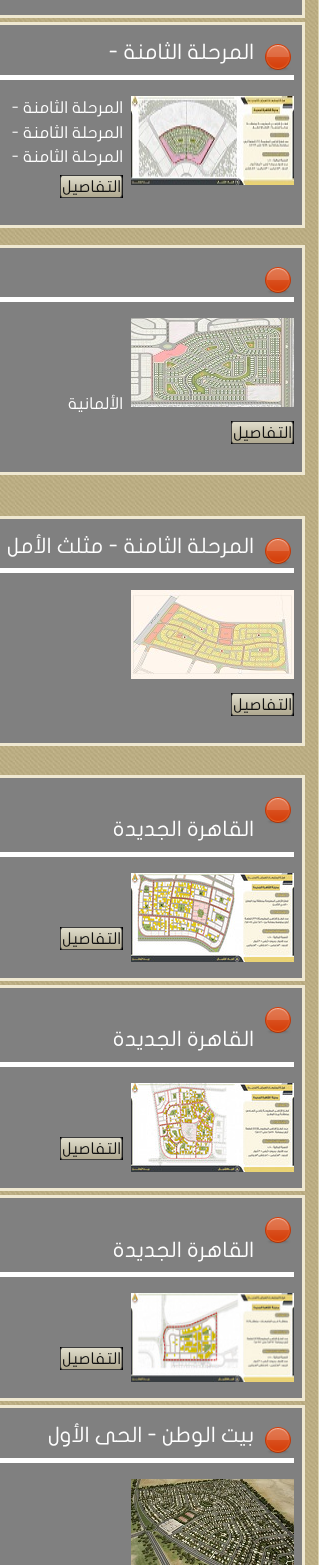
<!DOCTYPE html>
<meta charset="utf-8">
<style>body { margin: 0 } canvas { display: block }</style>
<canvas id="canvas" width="319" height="1565"></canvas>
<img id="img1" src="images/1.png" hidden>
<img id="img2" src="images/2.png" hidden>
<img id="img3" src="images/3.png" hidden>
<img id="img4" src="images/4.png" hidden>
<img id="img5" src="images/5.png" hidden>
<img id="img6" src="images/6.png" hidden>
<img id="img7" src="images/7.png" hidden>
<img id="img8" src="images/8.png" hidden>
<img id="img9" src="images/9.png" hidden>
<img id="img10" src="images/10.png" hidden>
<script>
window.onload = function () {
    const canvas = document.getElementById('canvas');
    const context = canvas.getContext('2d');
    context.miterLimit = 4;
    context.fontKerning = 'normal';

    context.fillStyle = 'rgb(255, 255, 255)';
    context.fillRect(0, 0, 319, 1565);
    context.drawImage(document.getElementById('img1'), 0, 0, 318, 1565);
    context.strokeStyle = 'rgb(220, 212, 178)';
    context.strokeRect(-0.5, -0.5, 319, 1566);
    context.fillStyle = 'rgb(128, 128, 128)';
    context.beginPath();
    context.rect(-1.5, -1.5, 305, 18);
    context.fill();
    context.strokeStyle = 'rgb(239, 232, 209)';
    context.lineWidth = 3;
    context.stroke();
    context.beginPath();
    context.rect(-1.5, 23.5, 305, 203);
    context.fill();
    context.stroke();
    context.fillStyle = 'rgb(255, 255, 255)';
    context.fillRect(0, 75, 294, 5);
    context.drawImage(document.getElementById('img2'), 265, 44, 26, 27);
    context.drawImage(document.getElementById('img3'), 131, 96, 163, 89);
    context.fillStyle = 'rgb(0, 0, 0)';
    context.fillRect(60, 175, 63, 23);
    context.drawImage(document.getElementById('img4'), 60, 175, 63, 23);
    context.fillStyle = 'rgb(128, 128, 128)';
    context.beginPath();
    context.rect(-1.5, 246.5, 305, 227);
    context.fill();
    context.stroke();
    context.fillStyle = 'rgb(255, 255, 255)';
    context.fillRect(0, 297, 294, 5);
    context.drawImage(document.getElementById('img2'), 265, 267, 26, 27);
    context.drawImage(document.getElementById('img5'), 131, 318, 163, 89);
    context.fillStyle = 'rgb(0, 0, 0)';
    context.fillRect(231, 421, 63, 23);
    context.drawImage(document.getElementById('img4'), 231, 421, 63, 23);
    context.fillStyle = 'rgb(128, 128, 128)';
    context.beginPath();
    context.rect(-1.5, 517.5, 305, 227);
    context.fill();
    context.stroke();
    context.fillStyle = 'rgb(255, 255, 255)';
    context.fillRect(0, 568, 294, 5);
    context.drawImage(document.getElementById('img2'), 265, 538, 26, 27);
    context.drawImage(document.getElementById('img6'), 131, 590, 163, 89);
    context.fillStyle = 'rgb(0, 0, 0)';
    context.fillRect(231, 693, 63, 23);
    context.drawImage(document.getElementById('img4'), 231, 693, 63, 23);
    context.fillStyle = 'rgb(128, 128, 128)';
    context.beginPath();
    context.rect(-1.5, 776.5, 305, 203);
    context.fill();
    context.stroke();
    context.fillStyle = 'rgb(255, 255, 255)';
    context.fillRect(0, 852, 294, 5);
    context.drawImage(document.getElementById('img2'), 265, 797, 26, 27);
    context.drawImage(document.getElementById('img7'), 131, 873, 163, 89);
    context.fillStyle = 'rgb(0, 0, 0)';
    context.fillRect(60, 927, 63, 23);
    context.drawImage(document.getElementById('img4'), 60, 927, 63, 23);
    context.fillStyle = 'rgb(128, 128, 128)';
    context.beginPath();
    context.rect(-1.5, 986.5, 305, 203);
    context.fill();
    context.stroke();
    context.fillStyle = 'rgb(255, 255, 255)';
    context.fillRect(0, 1062, 294, 5);
    context.drawImage(document.getElementById('img2'), 265, 1007, 26, 27);
    context.drawImage(document.getElementById('img8'), 131, 1083, 163, 89);
    context.fillStyle = 'rgb(0, 0, 0)';
    context.fillRect(60, 1137, 63, 23);
    context.drawImage(document.getElementById('img4'), 60, 1137, 63, 23);
    context.fillStyle = 'rgb(128, 128, 128)';
    context.beginPath();
    context.rect(-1.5, 1196.5, 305, 203);
    context.fill();
    context.stroke();
    context.fillStyle = 'rgb(255, 255, 255)';
    context.fillRect(0, 1272, 294, 5);
    context.drawImage(document.getElementById('img2'), 265, 1217, 26, 27);
    context.drawImage(document.getElementById('img9'), 131, 1293, 163, 89);
    context.fillStyle = 'rgb(0, 0, 0)';
    context.fillRect(60, 1347, 63, 23);
    context.drawImage(document.getElementById('img4'), 60, 1347, 63, 23);
    context.fillStyle = 'rgb(128, 128, 128)';
    context.beginPath();
    context.rect(-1.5, 1406.5, 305, 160);
    context.fill();
    context.stroke();
    context.fillStyle = 'rgb(255, 255, 255)';
    context.fillRect(0, 1458, 294, 5);
    context.drawImage(document.getElementById('img2'), 265, 1427, 26, 27);
    context.drawImage(document.getElementById('img10'), 131, 1479, 163, 86);
    context.direction = 'rtl';
    context.font = '21.25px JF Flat';
    context.fillText('المرحلة الثامنة -', 254, 59);
    context.font = '16.25px JF Flat';
    context.fillText('المرحلة الثامنة -', 123, 113);
    context.fillText('المرحلة الثامنة -', 123, 138);
    context.fillText('المرحلة الثامنة -', 123, 162);
    context.fillStyle = 'rgb(17, 17, 17)';
    context.fillText('التفاصيل', 121, 192);
    context.fillStyle = 'rgb(255, 255, 255)';
    context.fillText('الألمانية', 123, 409);
    context.fillStyle = 'rgb(17, 17, 17)';
    context.fillText('التفاصيل', 292, 438);
    context.font = '21.25px JF Flat';
    context.fillStyle = 'rgb(255, 255, 255)';
    context.fillText('المرحلة الثامنة - مثلث الأمل', 254, 553);
    context.font = '16.25px JF Flat';
    context.fillStyle = 'rgb(17, 17, 17)';
    context.fillText('التفاصيل', 292, 710);
    context.font = '21.25px JF Flat';
    context.fillStyle = 'rgb(255, 255, 255)';
    context.fillText('القاهرة الجديدة', 254, 836);
    context.font = '16.25px JF Flat';
    context.fillStyle = 'rgb(17, 17, 17)';
    context.fillText('التفاصيل', 121, 944);
    context.font = '21.25px JF Flat';
    context.fillStyle = 'rgb(255, 255, 255)';
    context.fillText('القاهرة الجديدة', 254, 1046);
    context.font = '16.25px JF Flat';
    context.fillStyle = 'rgb(17, 17, 17)';
    context.fillText('التفاصيل', 121, 1154);
    context.font = '21.25px JF Flat';
    context.fillStyle = 'rgb(255, 255, 255)';
    context.fillText('القاهرة الجديدة', 254, 1257);
    context.font = '16.25px JF Flat';
    context.fillStyle = 'rgb(17, 17, 17)';
    context.fillText('التفاصيل', 121, 1364);
    context.font = '21.25px JF Flat';
    context.fillStyle = 'rgb(255, 255, 255)';
    context.fillText('بيت الوطن', 254, 1442);
    context.fillText('- الحى الأول', 157, 1442);
};
</script>
